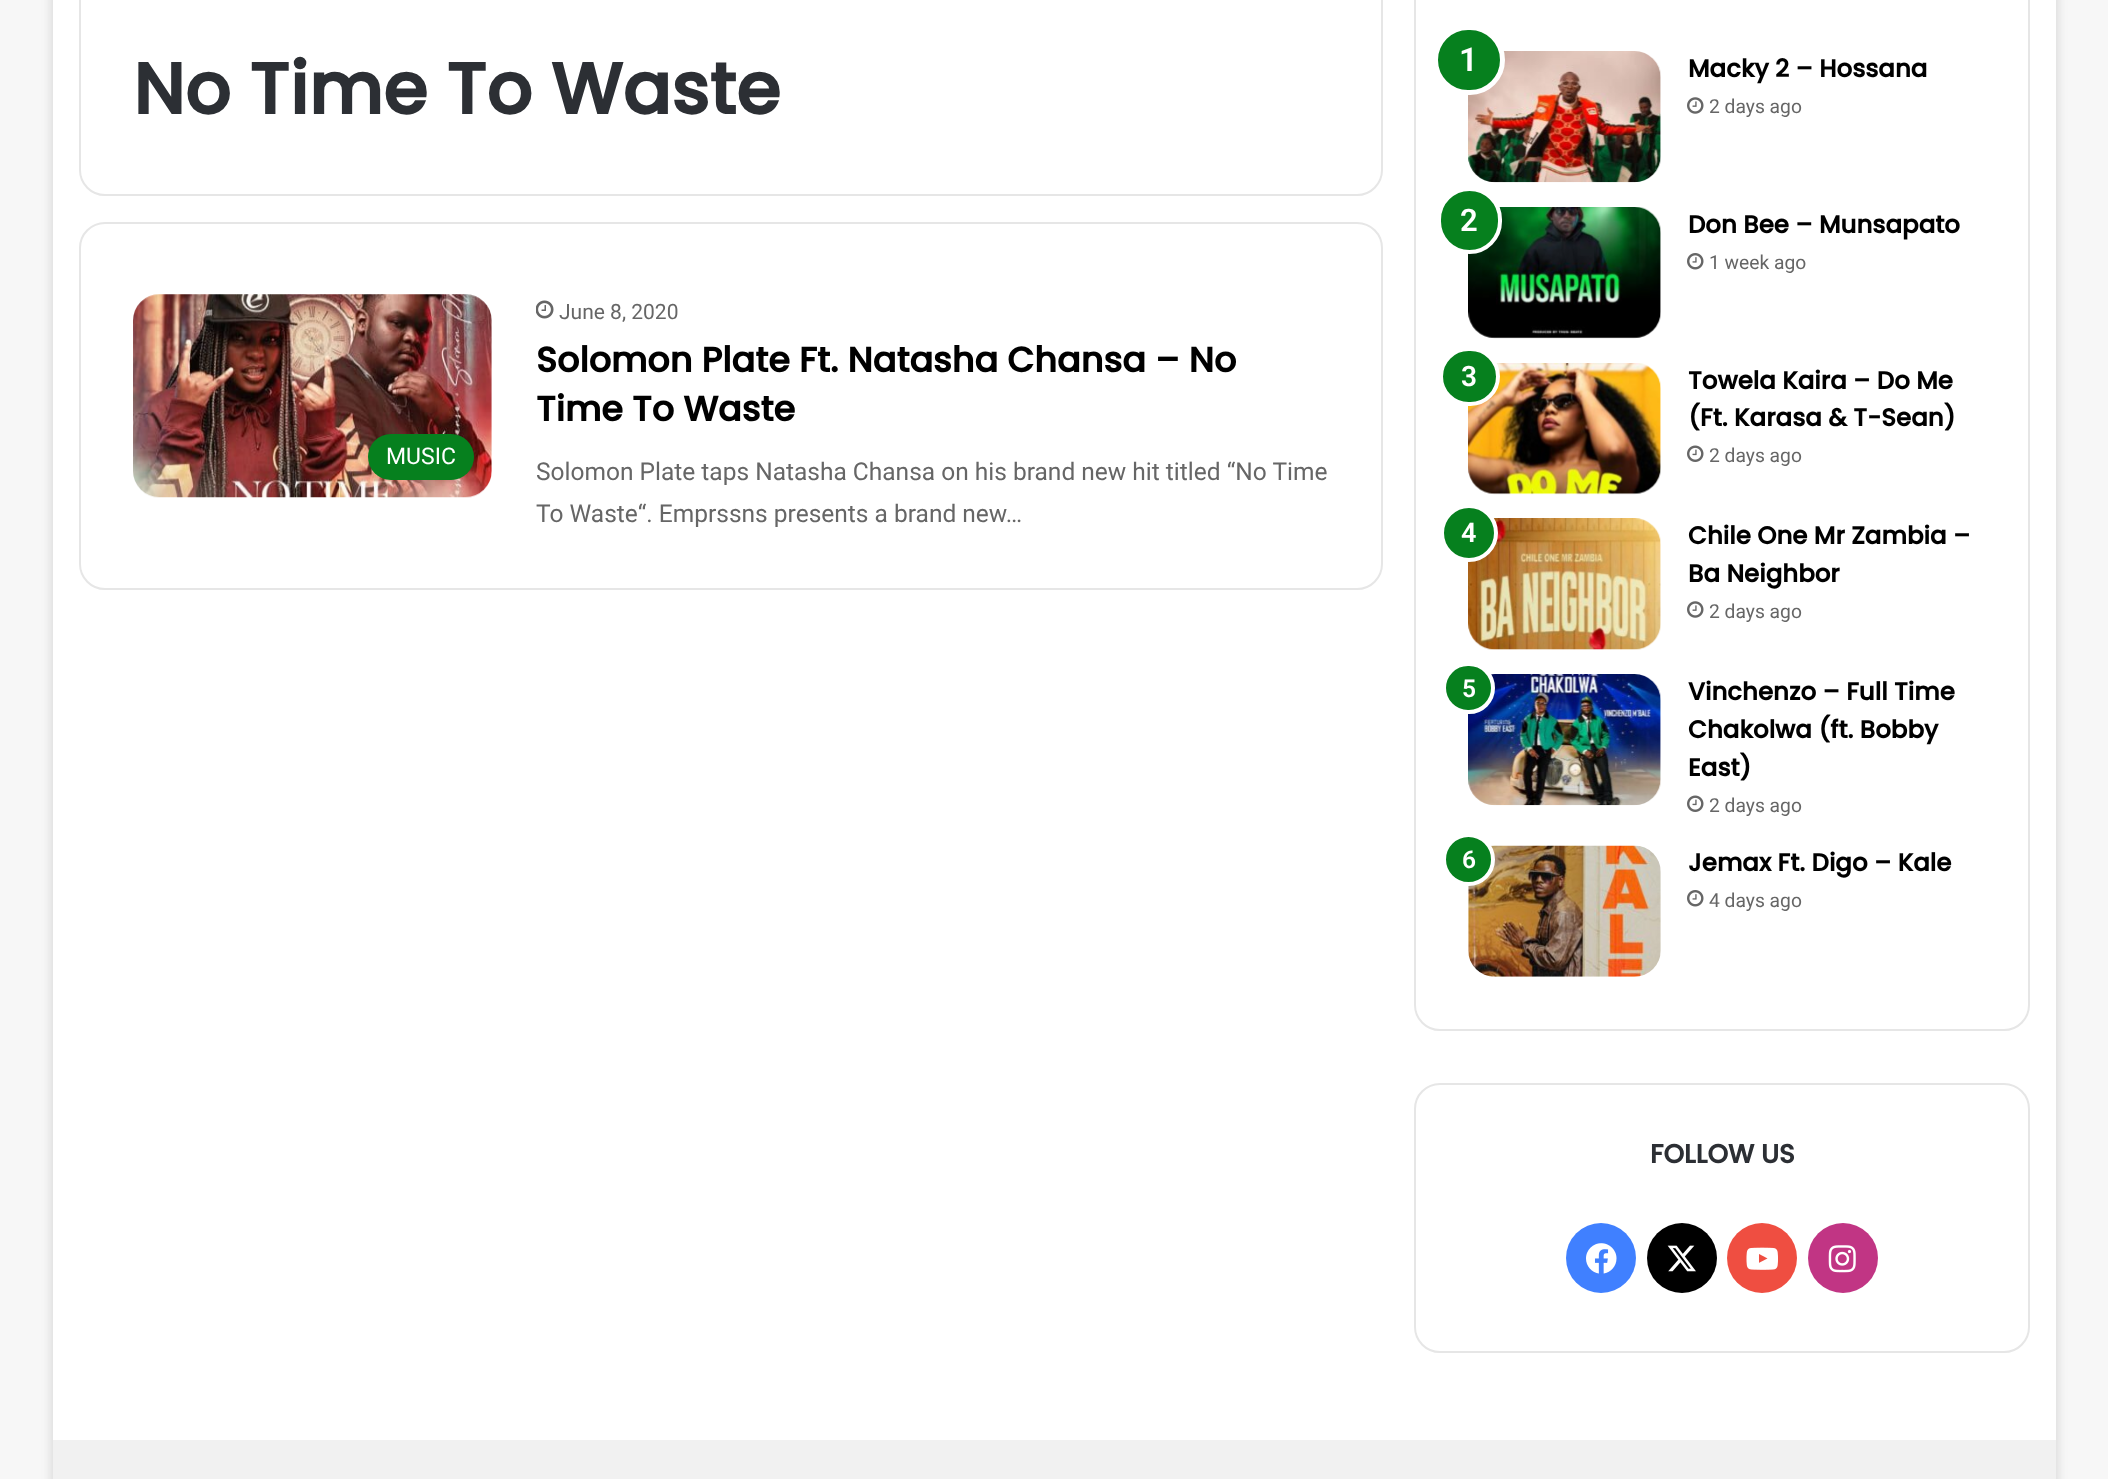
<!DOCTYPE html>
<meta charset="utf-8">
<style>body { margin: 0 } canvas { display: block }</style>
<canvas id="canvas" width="2108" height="1479"></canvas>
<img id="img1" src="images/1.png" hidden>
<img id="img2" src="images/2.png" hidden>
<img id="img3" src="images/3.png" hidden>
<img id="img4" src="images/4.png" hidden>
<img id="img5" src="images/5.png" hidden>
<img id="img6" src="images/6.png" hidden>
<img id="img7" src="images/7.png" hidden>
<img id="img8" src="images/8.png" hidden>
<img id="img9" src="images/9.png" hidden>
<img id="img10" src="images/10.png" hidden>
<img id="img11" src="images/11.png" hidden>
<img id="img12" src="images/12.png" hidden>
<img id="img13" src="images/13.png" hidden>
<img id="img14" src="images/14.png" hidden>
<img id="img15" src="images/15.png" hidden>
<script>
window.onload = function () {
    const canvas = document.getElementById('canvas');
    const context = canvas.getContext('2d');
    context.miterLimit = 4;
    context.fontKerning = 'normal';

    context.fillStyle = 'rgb(247, 247, 247)';
    context.fillRect(0, 0, 2108, 1479);
    context.fillStyle = 'rgba(171, 171, 171, 0.5)';
    context.filter = 'blur(6px)';
    context.beginPath();
    context.rect(53, -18, 2003, 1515);
    context.fill();
    context.filter = 'none';
    context.fillStyle = 'rgb(255, 255, 255)';
    context.fillRect(53, 0, 2003, 1440);
    context.beginPath();
    context.roundRect(80, -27, 1302, 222, 25);
    context.strokeStyle = 'rgb(230, 230, 230)';
    context.lineWidth = 2;
    context.stroke();
    context.beginPath();
    context.roundRect(80, 223, 1302, 366, 25);
    context.stroke();
    context.drawImage(document.getElementById('img1'), 133, 294, 359, 204);
    context.fillStyle = 'rgb(6, 128, 30)';
    context.beginPath();
    context.roundRect(368, 434, 106, 46, 23);
    context.fill();
    context.drawImage(document.getElementById('img2'), 536, 300, 18, 19);
    context.beginPath();
    context.roundRect(1415, -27, 614, 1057, 25);
    context.stroke();
    context.drawImage(document.getElementById('img3'), 1468, 51, 193, 132);
    context.beginPath();
    context.roundRect(1435.5, 27.5, 67, 65, 32.5);
    context.fill();
    context.strokeStyle = 'rgb(255, 255, 255)';
    context.lineWidth = 5;
    context.stroke();
    context.drawImage(document.getElementById('img4'), 1687, 97, 17, 17);
    context.drawImage(document.getElementById('img5'), 1468, 207, 193, 132);
    context.beginPath();
    context.roundRect(1439, 189, 61, 63, 30.5);
    context.fill();
    context.lineWidth = 4;
    context.stroke();
    context.drawImage(document.getElementById('img6'), 1687, 253, 17, 17);
    context.drawImage(document.getElementById('img7'), 1468, 363, 193, 132);
    context.beginPath();
    context.roundRect(1441, 349, 57, 55, 27.5);
    context.fill();
    context.stroke();
    context.drawImage(document.getElementById('img8'), 1687, 445, 17, 17);
    context.drawImage(document.getElementById('img9'), 1468, 518, 193, 132);
    context.beginPath();
    context.arc(1469, 533, 27, 0, 2 * Math.PI);
    context.fill();
    context.stroke();
    context.drawImage(document.getElementById('img4'), 1687, 601, 17, 17);
    context.drawImage(document.getElementById('img10'), 1468, 674, 193, 132);
    context.beginPath();
    context.roundRect(1444, 664, 49, 48, 24);
    context.fill();
    context.stroke();
    context.drawImage(document.getElementById('img8'), 1687, 795, 17, 17);
    context.drawImage(document.getElementById('img11'), 1468, 845, 193, 132);
    context.beginPath();
    context.arc(1468.5, 859.5, 24.5, 0, 2 * Math.PI);
    context.fill();
    context.stroke();
    context.drawImage(document.getElementById('img6'), 1687, 890, 17, 17);
    context.beginPath();
    context.roundRect(1415, 1084, 614, 268, 25);
    context.strokeStyle = 'rgb(230, 230, 230)';
    context.lineWidth = 2;
    context.stroke();
    context.fillStyle = 'rgb(64, 128, 255)';
    context.beginPath();
    context.arc(1601, 1258, 35, 0, 2 * Math.PI);
    context.fill();
    context.drawImage(document.getElementById('img12'), 1586, 1243, 31, 31);
    context.fillStyle = 'rgb(0, 0, 0)';
    context.beginPath();
    context.arc(1682, 1258, 35, 0, 2 * Math.PI);
    context.fill();
    context.drawImage(document.getElementById('img13'), 1667, 1245, 29, 27);
    context.fillStyle = 'rgb(239, 78, 65)';
    context.beginPath();
    context.arc(1762, 1258, 35, 0, 2 * Math.PI);
    context.fill();
    context.drawImage(document.getElementById('img14'), 1746, 1247, 32, 23);
    context.fillStyle = 'rgb(193, 53, 132)';
    context.beginPath();
    context.arc(1843, 1258, 35, 0, 2 * Math.PI);
    context.fill();
    context.drawImage(document.getElementById('img15'), 1828, 1245, 28, 28);
    context.fillStyle = 'rgb(241, 241, 241)';
    context.fillRect(53, 1440, 2003, 39);
    context.font = 'bold 71.75px Poppins';
    context.fillStyle = 'rgb(44, 47, 52)';
    context.fillText('No Time To Waste', 133, 114);
    context.font = '23px Roboto';
    context.fillStyle = 'rgb(255, 255, 255)';
    context.fillText('MUSIC', 386, 464);
    context.font = '21px Roboto';
    context.fillStyle = 'rgb(102, 102, 102)';
    context.fillText('June 8, 2020', 559, 319);
    context.font = 'bold 35px Poppins';
    context.fillStyle = 'rgb(0, 0, 0)';
    context.fillText('Solomon Plate Ft. Natasha Chansa – No', 536, 372);
    context.fillText('Time To Waste', 536, 421);
    context.font = '24.5px Roboto';
    context.fillStyle = 'rgb(102, 102, 102)';
    context.fillText('Solomon Plate taps Natasha Chansa on his brand new hit titled “No Time', 536, 480);
    context.fillText('To Waste“. Emprssns presents a brand new…', 536, 522);
    context.font = '600 33px Roboto';
    context.fillStyle = 'rgb(255, 255, 255)';
    context.fillText('1', 1459, 71);
    context.font = 'bold 24.5px Poppins';
    context.fillStyle = 'rgb(0, 0, 0)';
    context.fillText('Macky 2 – Hossana', 1688, 77);
    context.font = '19.25px Roboto';
    context.fillStyle = 'rgb(102, 102, 102)';
    context.fillText('2 days ago', 1709, 113);
    context.font = '600 31px Roboto';
    context.fillStyle = 'rgb(255, 255, 255)';
    context.fillText('2', 1460, 231);
    context.font = 'bold 24.5px Poppins';
    context.fillStyle = 'rgb(0, 0, 0)';
    context.fillText('Don Bee – Munsapato', 1688, 233);
    context.font = '19.25px Roboto';
    context.fillStyle = 'rgb(102, 102, 102)';
    context.fillText('1 week ago', 1709, 269);
    context.font = '600 28px Roboto';
    context.fillStyle = 'rgb(255, 255, 255)';
    context.fillText('3', 1461, 386);
    context.font = 'bold 24.5px Poppins';
    context.fillStyle = 'rgb(0, 0, 0)';
    context.fillText('Towela Kaira – Do Me', 1688, 389);
    context.fillText('(Ft. Karasa & T-Sean)', 1688, 426);
    context.font = '19.25px Roboto';
    context.fillStyle = 'rgb(102, 102, 102)';
    context.fillText('2 days ago', 1709, 462);
    context.font = '600 27px Roboto';
    context.fillStyle = 'rgb(255, 255, 255)';
    context.fillText('4', 1461, 542);
    context.font = 'bold 24.5px Poppins';
    context.fillStyle = 'rgb(0, 0, 0)';
    context.fillText('Chile One Mr Zambia –', 1688, 544);
    context.fillText('Ba Neighbor', 1688, 582);
    context.font = '19.25px Roboto';
    context.fillStyle = 'rgb(102, 102, 102)';
    context.fillText('2 days ago', 1709, 618);
    context.font = '600 24.5px Roboto';
    context.fillStyle = 'rgb(255, 255, 255)';
    context.fillText('5', 1462, 697);
    context.font = 'bold 24.5px Poppins';
    context.fillStyle = 'rgb(0, 0, 0)';
    context.fillText('Vinchenzo – Full Time', 1688, 700);
    context.fillText('Chakolwa (ft. Bobby', 1688, 738);
    context.fillText('East)', 1688, 776);
    context.font = '19.25px Roboto';
    context.fillStyle = 'rgb(102, 102, 102)';
    context.fillText('2 days ago', 1709, 812);
    context.font = '600 24.5px Roboto';
    context.fillStyle = 'rgb(255, 255, 255)';
    context.fillText('6', 1462, 868);
    context.font = 'bold 24.5px Poppins';
    context.fillStyle = 'rgb(0, 0, 0)';
    context.fillText('Jemax Ft. Digo – Kale', 1688, 871);
    context.font = '19.25px Roboto';
    context.fillStyle = 'rgb(102, 102, 102)';
    context.fillText('4 days ago', 1709, 907);
    context.font = 'bold 26.25px Poppins';
    context.fillStyle = 'rgb(44, 47, 52)';
    context.fillText('FOLLOW US', 1650, 1163);
};
</script>
